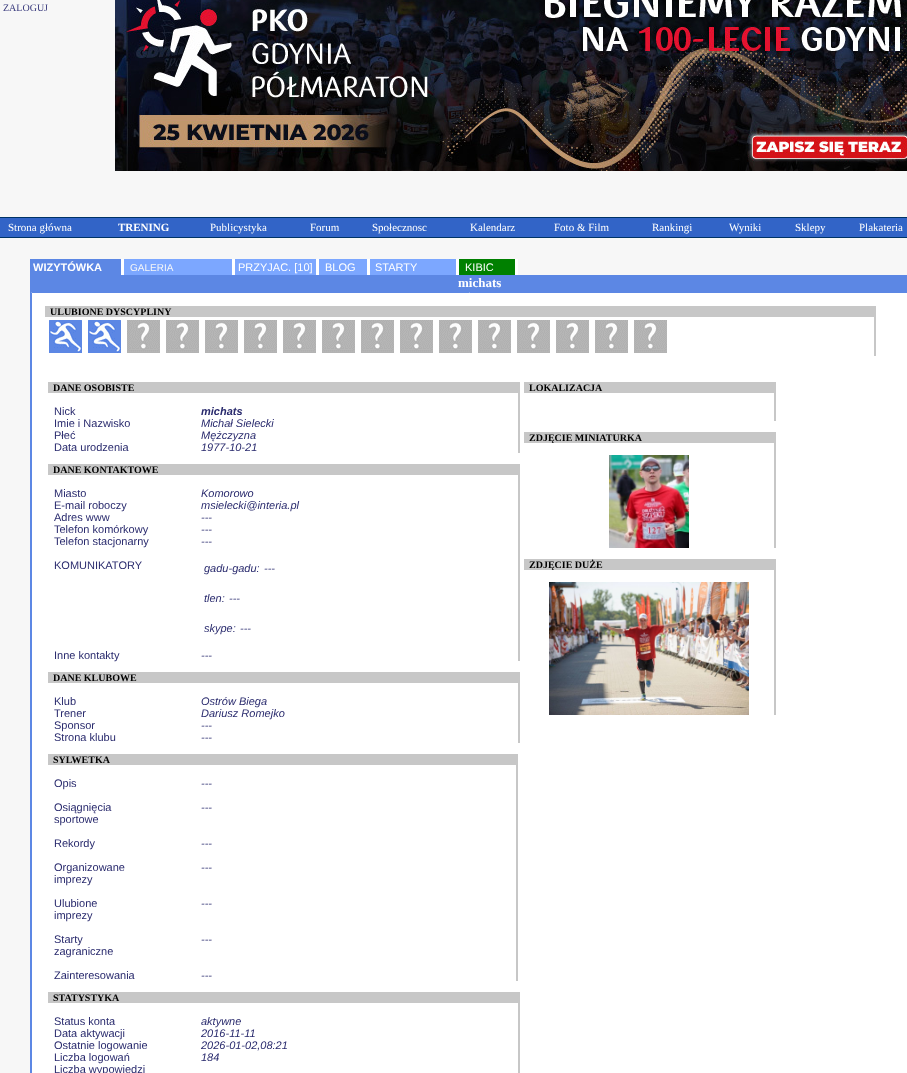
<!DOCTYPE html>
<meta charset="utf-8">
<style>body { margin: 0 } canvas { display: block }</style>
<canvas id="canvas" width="907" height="1073"></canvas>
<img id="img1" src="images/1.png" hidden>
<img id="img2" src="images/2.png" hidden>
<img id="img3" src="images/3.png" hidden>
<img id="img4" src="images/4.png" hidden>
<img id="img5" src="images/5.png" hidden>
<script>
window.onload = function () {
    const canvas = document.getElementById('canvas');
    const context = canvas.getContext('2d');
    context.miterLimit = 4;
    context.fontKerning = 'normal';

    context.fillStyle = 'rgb(247, 247, 247)';
    context.fillRect(0, 0, 907, 1073);
    context.drawImage(document.getElementById('img1'), 115, 0, 792, 171);
    context.fillStyle = 'rgb(50, 100, 199)';
    context.fillRect(0, 218, 907, 19);
    context.fillStyle = 'rgb(0, 51, 102)';
    context.fillRect(0, 217, 907, 1);
    context.fillRect(0, 237, 907, 1);
    context.fillStyle = 'rgb(92, 135, 228)';
    context.fillRect(30, 259, 91, 16);
    context.fillStyle = 'rgb(255, 255, 255)';
    context.fillRect(121, 259, 3, 16);
    context.fillStyle = 'rgb(124, 167, 255)';
    context.fillRect(124, 259, 108, 16);
    context.fillStyle = 'rgb(255, 255, 255)';
    context.fillRect(232, 259, 3, 16);
    context.fillStyle = 'rgb(124, 167, 255)';
    context.fillRect(235, 259, 81, 16);
    context.fillStyle = 'rgb(255, 255, 255)';
    context.fillRect(316, 259, 3, 16);
    context.fillStyle = 'rgb(124, 167, 255)';
    context.fillRect(319, 259, 48, 16);
    context.fillStyle = 'rgb(255, 255, 255)';
    context.fillRect(367, 259, 3, 16);
    context.fillStyle = 'rgb(124, 167, 255)';
    context.fillRect(370, 259, 86, 16);
    context.fillStyle = 'rgb(255, 255, 255)';
    context.fillRect(456, 259, 3, 16);
    context.fillStyle = 'rgb(0, 128, 0)';
    context.fillRect(459, 259, 56, 16);
    context.fillStyle = 'rgb(255, 255, 255)';
    context.fillRect(515, 259, 3, 16);
    context.fillStyle = 'rgb(92, 135, 228)';
    context.fillRect(30, 275, 877, 16);
    context.strokeStyle = 'rgb(92, 135, 228)';
    context.strokeRect(30.5, 291.5, 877, 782);
    context.fillStyle = 'rgb(255, 255, 255)';
    context.beginPath();
    context.rect(31.5, 292.5, 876, 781);
    context.fill();
    context.stroke();
    context.fillStyle = 'rgb(199, 199, 199)';
    context.fillRect(45, 306, 831, 11);
    context.drawImage(document.getElementById('img2'), 49, 320, 33, 33);
    context.drawImage(document.getElementById('img2'), 88, 320, 33, 33);
    context.drawImage(document.getElementById('img3'), 127, 320, 33, 33);
    context.drawImage(document.getElementById('img3'), 166, 320, 33, 33);
    context.drawImage(document.getElementById('img3'), 205, 320, 33, 33);
    context.drawImage(document.getElementById('img3'), 244, 320, 33, 33);
    context.drawImage(document.getElementById('img3'), 283, 320, 33, 33);
    context.drawImage(document.getElementById('img3'), 322, 320, 33, 33);
    context.drawImage(document.getElementById('img3'), 361, 320, 33, 33);
    context.drawImage(document.getElementById('img3'), 400, 320, 33, 33);
    context.drawImage(document.getElementById('img3'), 439, 320, 33, 33);
    context.drawImage(document.getElementById('img3'), 478, 320, 33, 33);
    context.drawImage(document.getElementById('img3'), 517, 320, 33, 33);
    context.drawImage(document.getElementById('img3'), 556, 320, 33, 33);
    context.drawImage(document.getElementById('img3'), 595, 320, 33, 33);
    context.drawImage(document.getElementById('img3'), 634, 320, 33, 33);
    context.fillRect(874, 317, 2, 39);
    context.fillRect(48, 382, 472, 11);
    context.fillRect(518, 393, 2, 60);
    context.fillRect(48, 464, 472, 11);
    context.fillRect(518, 475, 2, 186);
    context.fillRect(48, 672, 472, 11);
    context.fillRect(518, 683, 2, 60);
    context.fillRect(48, 754, 470, 11);
    context.fillRect(516, 765, 2, 216);
    context.fillRect(48, 992, 472, 11);
    context.fillRect(518, 1003, 2, 70);
    context.fillRect(524, 382, 252, 11);
    context.fillRect(774, 393, 2, 28);
    context.fillRect(524, 432, 252, 11);
    context.drawImage(document.getElementById('img4'), 609, 455, 80, 93);
    context.fillRect(774, 443, 2, 105);
    context.fillRect(524, 559, 252, 11);
    context.drawImage(document.getElementById('img5'), 549, 582, 200, 133);
    context.fillRect(774, 570, 2, 145);
    context.font = '10px Liberation Serif';
    context.fillStyle = 'rgb(57, 58, 125)';
    context.fillText('ZALOGUJ', 3, 11);
    context.font = '11px Liberation Serif';
    context.fillStyle = 'rgb(255, 255, 255)';
    context.fillText('Strona główna', 8, 231);
    context.font = 'bold 11px Liberation Serif';
    context.fillText('TRENING', 118, 231);
    context.font = '11px Liberation Serif';
    context.fillText('Publicystyka', 210, 231);
    context.fillText('Forum', 310, 231);
    context.fillText('Społecznosc', 372, 231);
    context.fillText('Kalendarz', 470, 231);
    context.fillText('Foto & Film', 554, 231);
    context.fillText('Rankingi', 652, 231);
    context.fillText('Wyniki', 729, 231);
    context.fillText('Sklepy', 795, 231);
    context.fillText('Plakateria', 859, 231);
    context.font = 'bold 11px Liberation Sans';
    context.fillText('WIZYTÓWKA', 33, 271);
    context.font = '10px Liberation Sans';
    context.fillStyle = 'rgb(247, 247, 247)';
    context.fillText('GALERIA', 130, 271);
    context.font = '11px Liberation Sans';
    context.fillStyle = 'rgb(255, 255, 255)';
    context.fillText('PRZYJAC. [10]', 238, 271);
    context.fillText('BLOG', 325, 271);
    context.fillText('STARTY', 375, 271);
    context.fillText('KIBIC', 465, 271);
    context.font = 'bold 13px Liberation Serif';
    context.fillText('michats', 458, 287);
    context.font = 'bold 10px Liberation Serif';
    context.fillStyle = 'rgb(0, 0, 0)';
    context.fillText('ULUBIONE DYSCYPLINY', 50, 315);
    context.fillText('DANE OSOBISTE', 53, 391);
    context.font = '11px Liberation Sans';
    context.fillStyle = 'rgb(41, 42, 109)';
    context.fillText('Nick', 54, 415);
    context.font = 'italic bold 11px Liberation Sans';
    context.fillText('michats', 201, 415);
    context.font = '11px Liberation Sans';
    context.fillText('Imie i Nazwisko', 54, 427);
    context.font = 'italic 11px Liberation Sans';
    context.fillText('Michał Sielecki', 201, 427);
    context.font = '11px Liberation Sans';
    context.fillText('Płeć', 54, 439);
    context.font = 'italic 11px Liberation Sans';
    context.fillText('Mężczyzna', 201, 439);
    context.font = '11px Liberation Sans';
    context.fillText('Data urodzenia', 54, 451);
    context.font = 'italic 11px Liberation Sans';
    context.fillText('1977-10-21', 201, 451);
    context.font = 'bold 10px Liberation Serif';
    context.fillStyle = 'rgb(0, 0, 0)';
    context.fillText('DANE KONTAKTOWE', 53, 473);
    context.font = '11px Liberation Sans';
    context.fillStyle = 'rgb(41, 42, 109)';
    context.fillText('Miasto', 54, 497);
    context.font = 'italic 11px Liberation Sans';
    context.fillText('Komorowo', 201, 497);
    context.font = '11px Liberation Sans';
    context.fillText('E-mail roboczy', 54, 509);
    context.font = 'italic 11px Liberation Sans';
    context.fillText('msielecki@interia.pl', 201, 509);
    context.font = '11px Liberation Sans';
    context.fillText('Adres www', 54, 521);
    context.font = 'italic 11px Liberation Sans';
    context.fillText('---', 201, 521);
    context.font = '11px Liberation Sans';
    context.fillText('Telefon komórkowy', 54, 533);
    context.font = 'italic 11px Liberation Sans';
    context.fillText('---', 201, 533);
    context.font = '11px Liberation Sans';
    context.fillText('Telefon stacjonarny', 54, 545);
    context.font = 'italic 11px Liberation Sans';
    context.fillText('---', 201, 545);
    context.font = '11px Liberation Sans';
    context.fillText('KOMUNIKATORY', 54, 569);
    context.font = 'italic 11px Liberation Sans';
    context.fillText('gadu-gadu:', 204, 572);
    context.fillText('---', 264, 572);
    context.fillText('tlen:', 204, 602);
    context.fillText('---', 229, 602);
    context.fillText('skype:', 204, 632);
    context.fillText('---', 240, 632);
    context.font = '11px Liberation Sans';
    context.fillText('Inne kontakty', 54, 659);
    context.font = 'italic 11px Liberation Sans';
    context.fillText('---', 201, 659);
    context.font = 'bold 10px Liberation Serif';
    context.fillStyle = 'rgb(0, 0, 0)';
    context.fillText('DANE KLUBOWE', 53, 681);
    context.font = '11px Liberation Sans';
    context.fillStyle = 'rgb(41, 42, 109)';
    context.fillText('Klub', 54, 705);
    context.font = 'italic 11px Liberation Sans';
    context.fillText('Ostrów Biega', 201, 705);
    context.font = '11px Liberation Sans';
    context.fillText('Trener', 54, 717);
    context.font = 'italic 11px Liberation Sans';
    context.fillText('Dariusz Romejko', 201, 717);
    context.font = '11px Liberation Sans';
    context.fillText('Sponsor', 54, 729);
    context.font = 'italic 11px Liberation Sans';
    context.fillText('---', 201, 729);
    context.font = '11px Liberation Sans';
    context.fillText('Strona klubu', 54, 741);
    context.font = 'italic 11px Liberation Sans';
    context.fillText('---', 201, 741);
    context.font = 'bold 10px Liberation Serif';
    context.fillStyle = 'rgb(0, 0, 0)';
    context.fillText('SYLWETKA', 53, 763);
    context.font = '11px Liberation Sans';
    context.fillStyle = 'rgb(41, 42, 109)';
    context.fillText('Opis', 54, 787);
    context.font = 'italic 11px Liberation Sans';
    context.fillText('---', 201, 787);
    context.font = '11px Liberation Sans';
    context.fillText('Osiągnięcia', 54, 811);
    context.fillText('sportowe', 54, 823);
    context.font = 'italic 11px Liberation Sans';
    context.fillText('---', 201, 811);
    context.font = '11px Liberation Sans';
    context.fillText('Rekordy', 54, 847);
    context.font = 'italic 11px Liberation Sans';
    context.fillText('---', 201, 847);
    context.font = '11px Liberation Sans';
    context.fillText('Organizowane', 54, 871);
    context.fillText('imprezy', 54, 883);
    context.font = 'italic 11px Liberation Sans';
    context.fillText('---', 201, 871);
    context.font = '11px Liberation Sans';
    context.fillText('Ulubione', 54, 907);
    context.fillText('imprezy', 54, 919);
    context.font = 'italic 11px Liberation Sans';
    context.fillText('---', 201, 907);
    context.font = '11px Liberation Sans';
    context.fillText('Starty', 54, 943);
    context.fillText('zagraniczne', 54, 955);
    context.font = 'italic 11px Liberation Sans';
    context.fillText('---', 201, 943);
    context.font = '11px Liberation Sans';
    context.fillText('Zainteresowania', 54, 979);
    context.font = 'italic 11px Liberation Sans';
    context.fillText('---', 201, 979);
    context.font = 'bold 10px Liberation Serif';
    context.fillStyle = 'rgb(0, 0, 0)';
    context.fillText('STATYSTYKA', 53, 1001);
    context.font = '11px Liberation Sans';
    context.fillStyle = 'rgb(41, 42, 109)';
    context.fillText('Status konta', 54, 1025);
    context.font = 'italic 11px Liberation Sans';
    context.fillText('aktywne', 201, 1025);
    context.font = '11px Liberation Sans';
    context.fillText('Data aktywacji', 54, 1037);
    context.font = 'italic 11px Liberation Sans';
    context.fillText('2016-11-11', 201, 1037);
    context.font = '11px Liberation Sans';
    context.fillText('Ostatnie logowanie', 54, 1049);
    context.font = 'italic 11px Liberation Sans';
    context.fillText('2026-01-02,08:21', 201, 1049);
    context.font = '11px Liberation Sans';
    context.fillText('Liczba logowań', 54, 1061);
    context.font = 'italic 11px Liberation Sans';
    context.fillText('184', 201, 1061);
    context.font = '11px Liberation Sans';
    context.fillText('Liczba wypowiedzi', 54, 1073);
    context.font = 'bold 10px Liberation Serif';
    context.fillStyle = 'rgb(0, 0, 0)';
    context.fillText('LOKALIZACJA', 529, 391);
    context.fillText('ZDJĘCIE MINIATURKA', 529, 441);
    context.fillText('ZDJĘCIE DUŻE', 529, 568);
};
</script>
